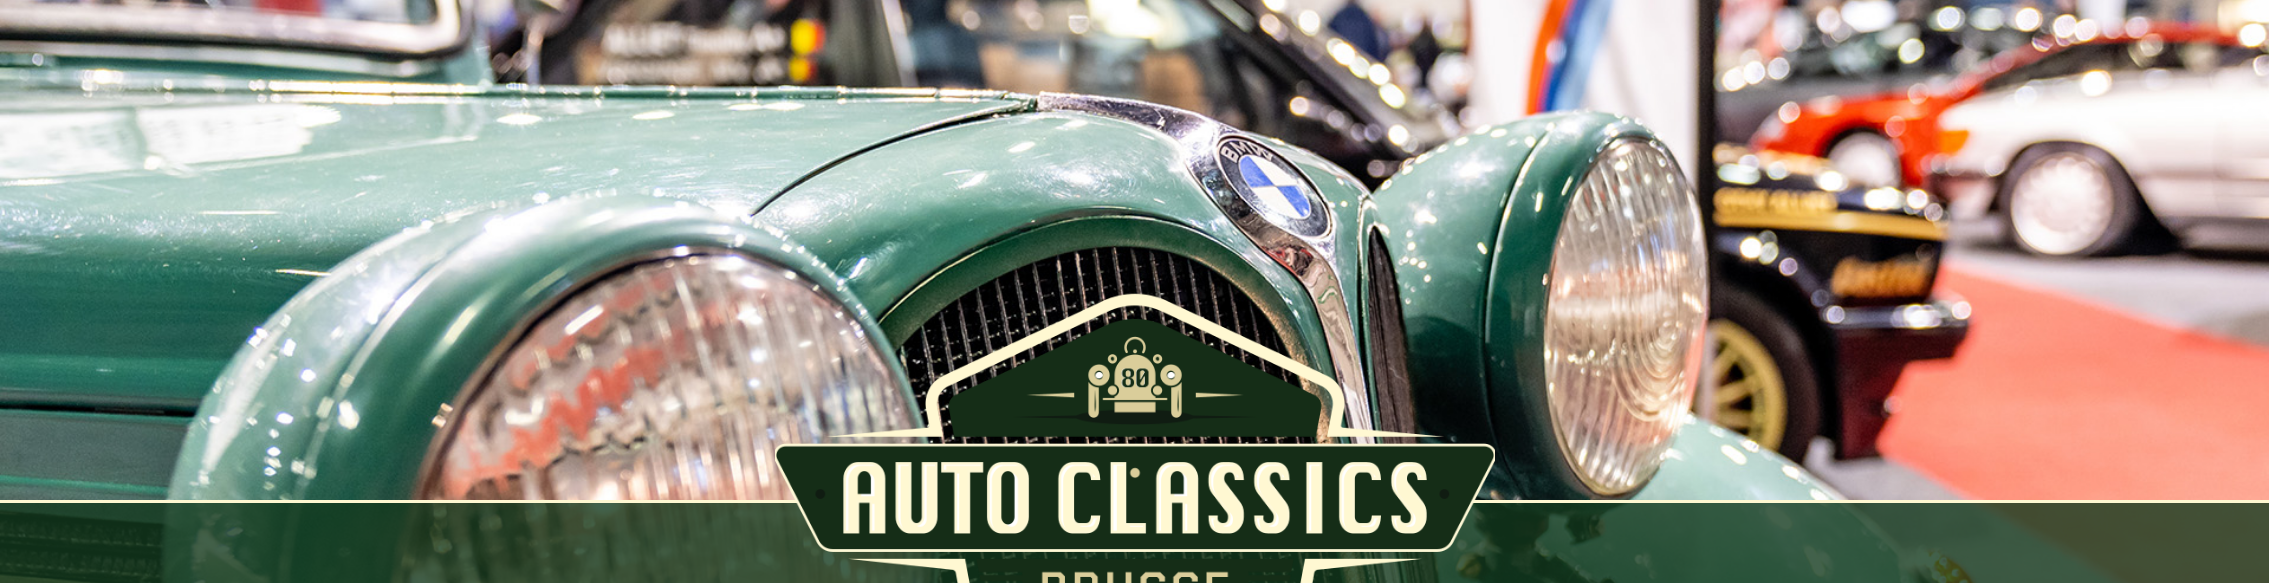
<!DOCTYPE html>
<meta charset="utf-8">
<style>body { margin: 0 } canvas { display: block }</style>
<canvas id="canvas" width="2269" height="583"></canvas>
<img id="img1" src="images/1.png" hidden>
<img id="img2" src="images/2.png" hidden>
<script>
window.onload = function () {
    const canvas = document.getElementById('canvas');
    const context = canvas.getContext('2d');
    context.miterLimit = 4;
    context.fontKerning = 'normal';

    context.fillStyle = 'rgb(255, 255, 255)';
    context.fillRect(0, 0, 2269, 583);
    context.drawImage(document.getElementById('img1'), 0, 0, 2269, 583);
    context.fillStyle = 'rgba(19, 58, 30, 0.8)';
    context.fillRect(0, 503, 2269, 80);
    context.fillStyle = 'rgb(255, 248, 210)';
    context.fillRect(0, 500, 2269, 3);
    context.drawImage(document.getElementById('img2'), 775, 293, 720, 290);
};
</script>
